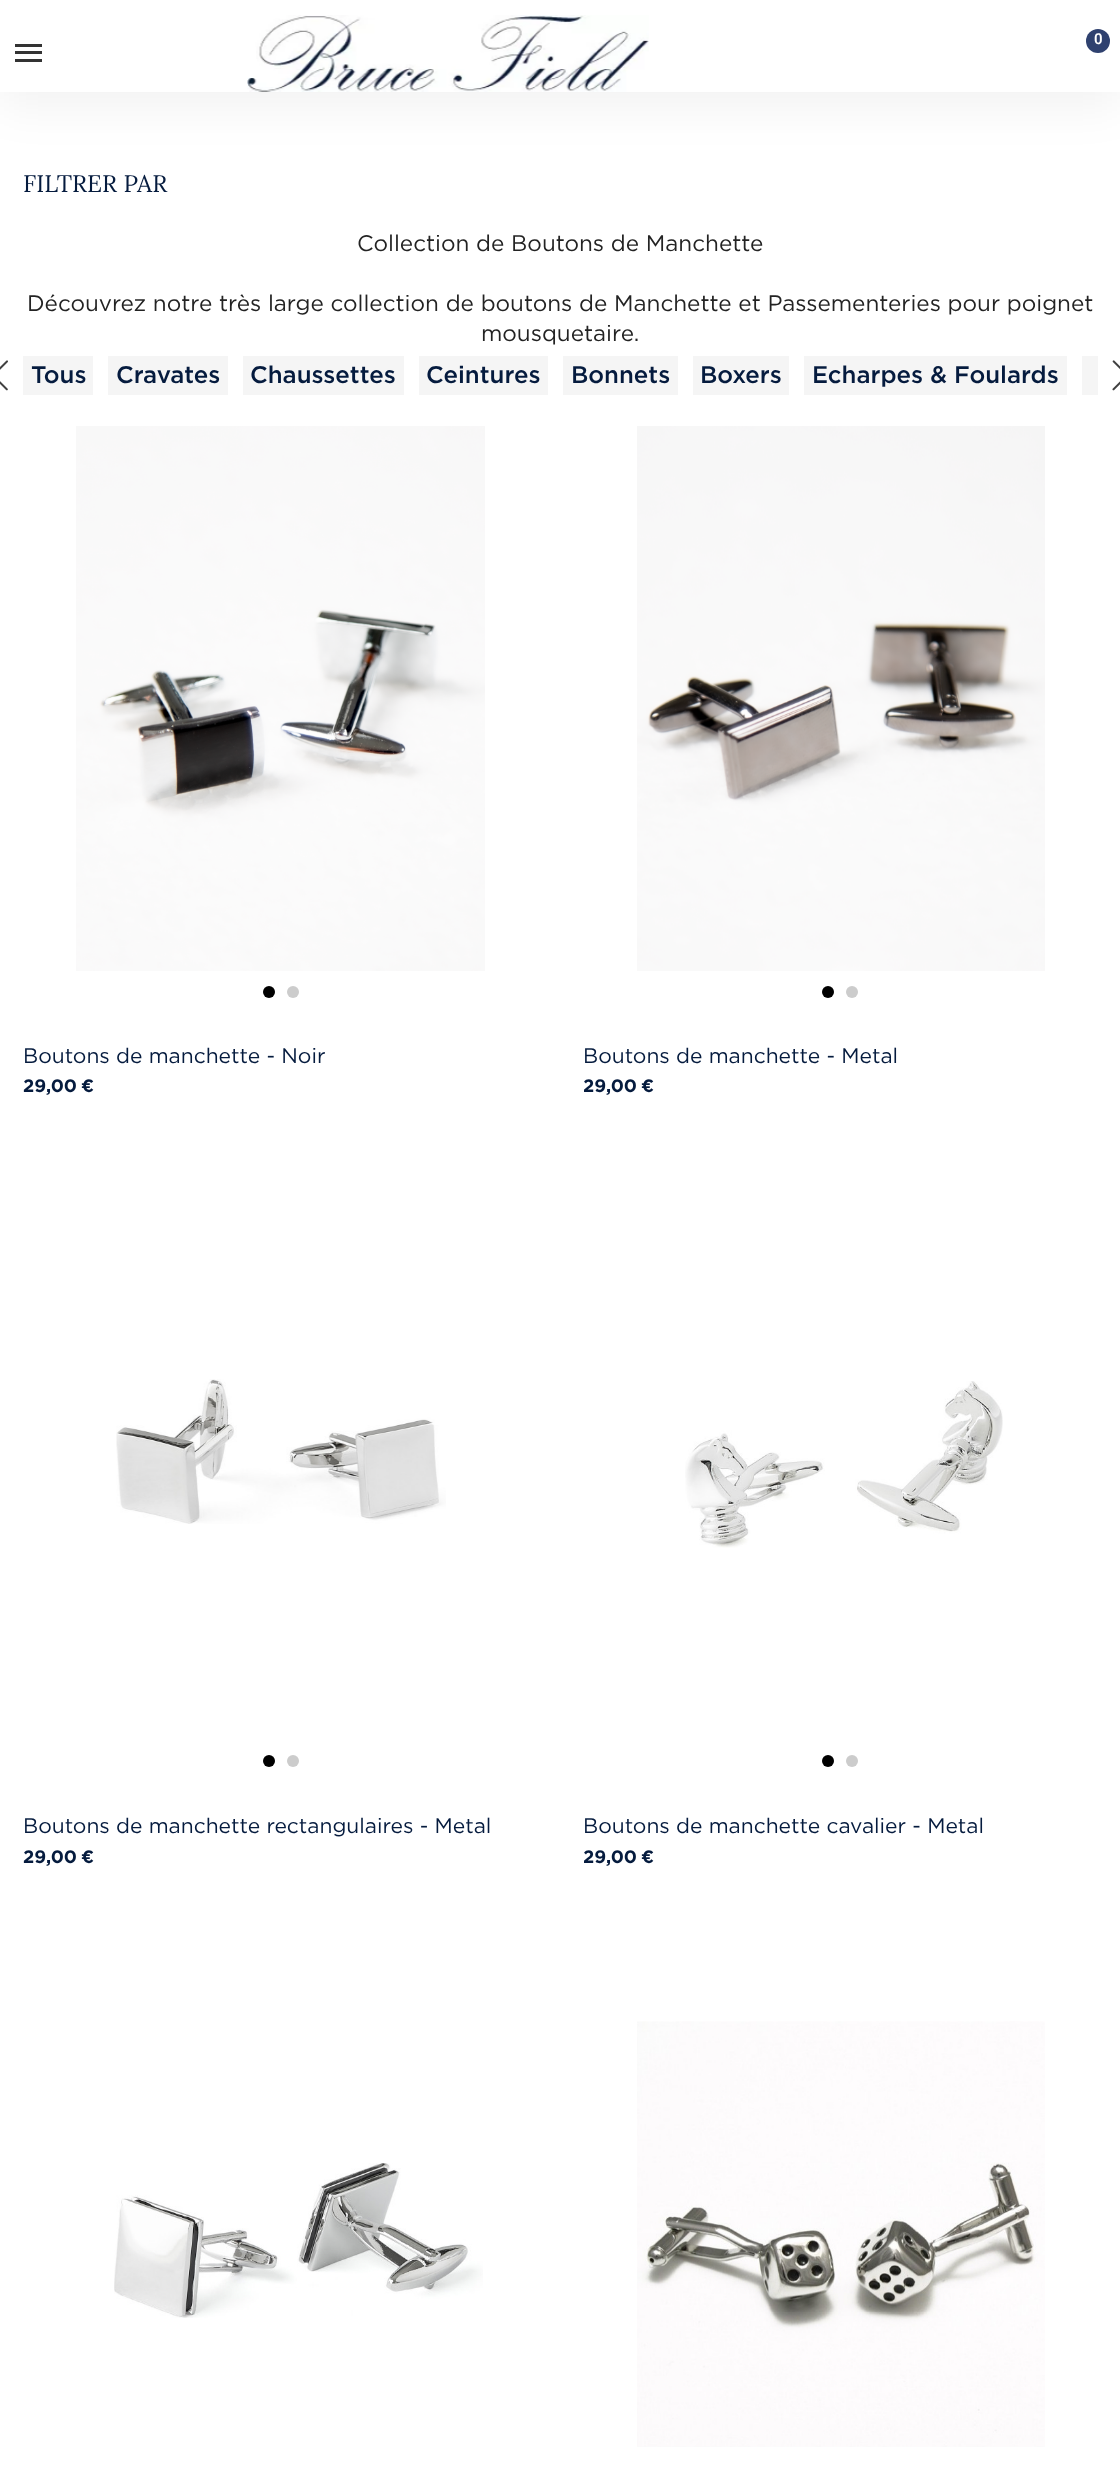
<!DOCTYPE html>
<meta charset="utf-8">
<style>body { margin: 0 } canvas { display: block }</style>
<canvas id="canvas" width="1120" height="2478"></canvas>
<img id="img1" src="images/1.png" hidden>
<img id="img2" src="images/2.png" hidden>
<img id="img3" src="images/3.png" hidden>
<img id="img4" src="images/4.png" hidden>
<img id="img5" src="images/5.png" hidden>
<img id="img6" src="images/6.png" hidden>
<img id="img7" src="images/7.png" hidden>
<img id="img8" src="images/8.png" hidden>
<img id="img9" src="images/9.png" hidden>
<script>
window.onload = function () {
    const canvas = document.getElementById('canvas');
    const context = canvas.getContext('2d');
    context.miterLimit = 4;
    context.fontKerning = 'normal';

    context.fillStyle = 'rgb(255, 255, 255)';
    context.fillRect(0, 0, 1120, 2478);
    context.fillStyle = 'rgba(0, 0, 0, 0.05)';
    context.filter = 'blur(22.5px)';
    context.beginPath();
    context.rect(0, 15, 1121, 92);
    context.fill();
    context.filter = 'none';
    context.fillStyle = 'rgb(255, 255, 255)';
    context.fillRect(0, 0, 1120, 92);
    context.drawImage(document.getElementById('img1'), 247, 15, 402, 77);
    context.fillStyle = 'rgb(47, 65, 111)';
    context.beginPath();
    context.arc(1098, 41, 12, 0, 2 * Math.PI);
    context.fill();
    context.fillStyle = 'rgb(51, 51, 51)';
    context.fillRect(15, 44, 27, 3);
    context.fillRect(15, 51, 27, 3);
    context.fillRect(15, 59, 27, 3);
    context.drawImage(document.getElementById('img2'), 0, 360, 8, 31);
    context.fillStyle = 'rgb(245, 245, 245)';
    context.fillRect(23, 356, 70, 39);
    context.fillRect(108, 356, 120, 39);
    context.fillRect(243, 356, 161, 39);
    context.fillRect(419, 356, 129, 39);
    context.fillRect(563, 356, 115, 39);
    context.fillRect(693, 356, 96, 39);
    context.fillRect(804, 356, 263, 39);
    context.fillRect(1082, 356, 16, 39);
    context.drawImage(document.getElementById('img3'), 1112, 360, 8, 31);
    context.drawImage(document.getElementById('img4'), 76, 426, 409, 545);
    context.fillStyle = 'rgb(0, 0, 0)';
    context.beginPath();
    context.arc(269, 992, 6, 0, 2 * Math.PI);
    context.fill();
    context.fillStyle = 'rgb(204, 204, 204)';
    context.beginPath();
    context.arc(293, 992, 6, 0, 2 * Math.PI);
    context.fill();
    context.drawImage(document.getElementById('img5'), 637, 426, 408, 545);
    context.fillStyle = 'rgb(0, 0, 0)';
    context.beginPath();
    context.arc(828, 992, 6, 0, 2 * Math.PI);
    context.fill();
    context.fillStyle = 'rgb(204, 204, 204)';
    context.beginPath();
    context.arc(852, 992, 6, 0, 2 * Math.PI);
    context.fill();
    context.drawImage(document.getElementById('img6'), 116, 1379, 330, 145);
    context.fillStyle = 'rgb(0, 0, 0)';
    context.beginPath();
    context.arc(269, 1761, 6, 0, 2 * Math.PI);
    context.fill();
    context.fillStyle = 'rgb(204, 204, 204)';
    context.beginPath();
    context.arc(293, 1761, 6, 0, 2 * Math.PI);
    context.fill();
    context.drawImage(document.getElementById('img7'), 685, 1381, 318, 167);
    context.fillStyle = 'rgb(0, 0, 0)';
    context.beginPath();
    context.arc(828, 1761, 6, 0, 2 * Math.PI);
    context.fill();
    context.fillStyle = 'rgb(204, 204, 204)';
    context.beginPath();
    context.arc(852, 1761, 6, 0, 2 * Math.PI);
    context.fill();
    context.drawImage(document.getElementById('img8'), 114, 2163, 369, 155);
    context.drawImage(document.getElementById('img9'), 637, 2021, 408, 426);
    context.font = '600 15px Roboto';
    context.fillStyle = 'rgb(255, 255, 255)';
    context.fillText('0', 1094, 44);
    context.font = '24px Lora';
    context.fillStyle = 'rgb(5, 27, 62)';
    context.fillText('FILTRER PAR', 23, 192);
    context.font = '22.5px Gotham';
    context.fillStyle = 'rgb(35, 35, 35)';
    context.fillText('Collection de Boutons de Manchette', 357, 251);
    context.fillText('Découvrez notre très large collection de boutons de Manchette et Passementeries pour poignet', 27, 311);
    context.fillText('mousquetaire.', 481, 341);
    context.font = '500 24px Gotham';
    context.fillStyle = 'rgb(5, 27, 62)';
    context.fillText('Tous', 31, 383);
    context.fillText('Cravates', 116, 383);
    context.fillText('Chaussettes', 250, 383);
    context.fillText('Ceintures', 426, 383);
    context.fillText('Bonnets', 571, 383);
    context.fillText('Boxers', 700, 383);
    context.fillText('Echarpes & Foulards', 812, 383);
    context.font = '21px Gotham';
    context.fillText('Boutons de manchette - Noir', 23, 1063);
    context.font = 'bold 18px Gotham';
    context.fillText('29,00', 23, 1092);
    context.fillText('€', 81, 1092);
    context.font = '21px Gotham';
    context.fillText('Boutons de manchette - Metal', 583, 1063);
    context.save();
    context.beginPath();
    context.rect(584, 1068, 514, 33);
    context.clip();
    context.font = 'bold 18px Gotham';
    context.fillText('29,00', 583, 1092);
    context.fillText('€', 641, 1092);
    context.restore();
    context.fillText('Boutons de manchette rectangulaires - Metal', 23, 1833);
    context.font = 'bold 18px Gotham';
    context.fillText('29,00', 23, 1863);
    context.fillText('€', 81, 1863);
    context.font = '21px Gotham';
    context.fillText('Boutons de manchette cavalier - Metal', 583, 1833);
    context.save();
    context.beginPath();
    context.rect(584, 1839, 514, 33);
    context.clip();
    context.font = 'bold 18px Gotham';
    context.fillText('29,00', 583, 1863);
    context.fillText('€', 641, 1863);
    context.restore();
};
</script>
